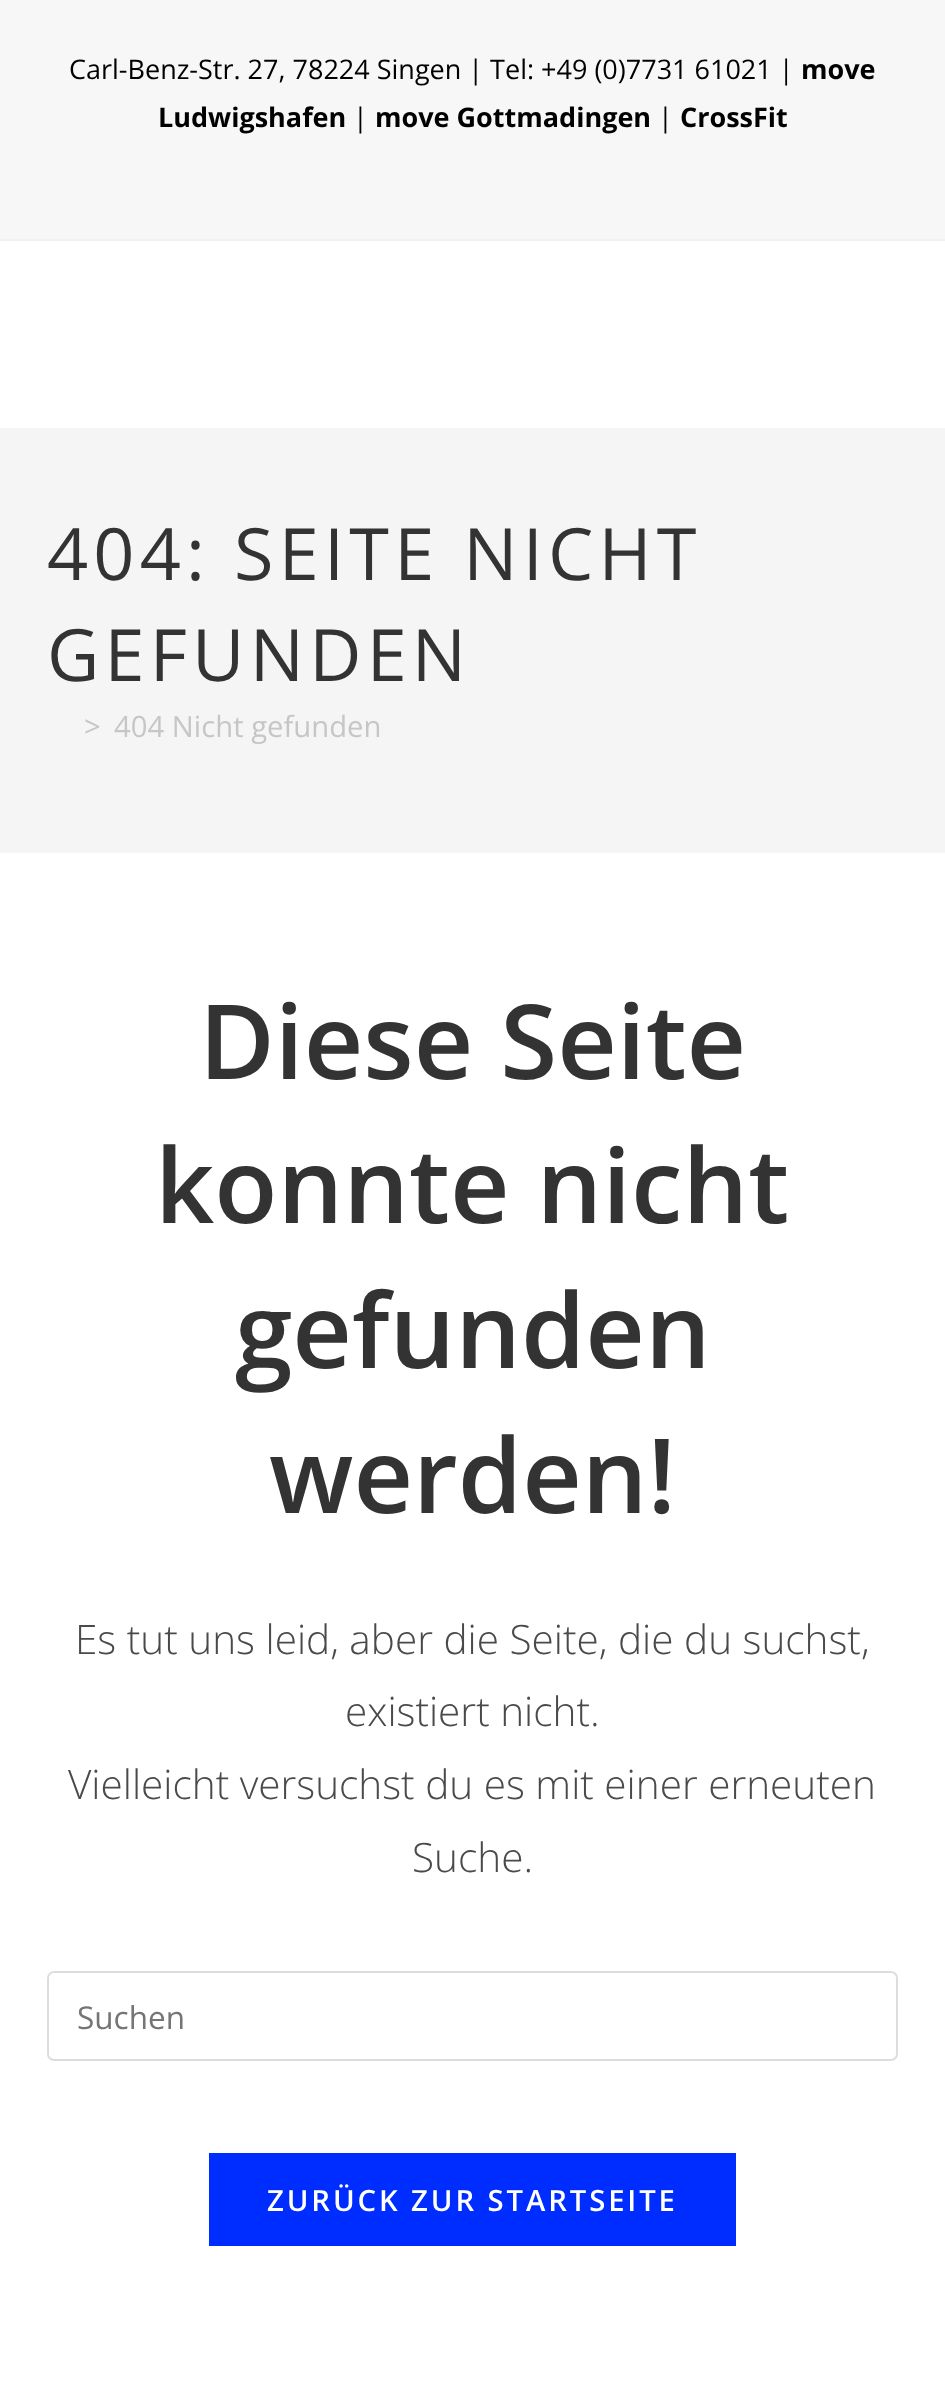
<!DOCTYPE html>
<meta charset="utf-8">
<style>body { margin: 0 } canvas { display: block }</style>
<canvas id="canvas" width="945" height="2381"></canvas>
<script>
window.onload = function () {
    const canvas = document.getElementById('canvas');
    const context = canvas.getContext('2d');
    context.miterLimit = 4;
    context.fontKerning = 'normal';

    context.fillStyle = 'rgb(255, 255, 255)';
    context.fillRect(0, 0, 945, 2381);
    context.fillStyle = 'rgb(247, 247, 247)';
    context.fillRect(0, 0, 945, 239);
    context.fillStyle = 'rgb(241, 241, 241)';
    context.fillRect(0, 239, 945, 2);
    context.fillStyle = 'rgb(245, 245, 245)';
    context.fillRect(0, 428, 945, 425);
    context.beginPath();
    context.roundRect(48, 1972, 849, 88, 6);
    context.strokeStyle = 'rgb(221, 221, 221)';
    context.lineWidth = 2;
    context.stroke();
    context.fillStyle = 'rgb(0, 45, 255)';
    context.fillRect(209, 2153, 527, 93);
    context.font = '27px Open Sans';
    context.fillStyle = 'rgb(0, 0, 0)';
    context.fillText('Carl-Benz-Str. 27, 78224 Singen | Tel: +49 (0)7731 61021 |', 69, 79);
    context.font = 'bold 27px Open Sans';
    context.fillText('move', 801, 79);
    context.fillText('Ludwigshafen', 158, 127);
    context.font = '27px Open Sans';
    context.fillText('|', 353, 127);
    context.font = 'bold 27px Open Sans';
    context.fillText('move Gottmadingen', 375, 127);
    context.font = '27px Open Sans';
    context.fillText('|', 658, 127);
    context.font = 'bold 27px Open Sans';
    context.fillText('CrossFit', 680, 127);
    context.letterSpacing = '5.2px';
    context.font = '72px Open Sans';
    context.fillStyle = 'rgb(51, 51, 51)';
    context.fillText('404: SEITE NICHT', 47, 580);
    context.fillText('GEFUNDEN', 47, 681);
    context.letterSpacing = '0px';
    context.font = '29.25px Open Sans';
    context.fillStyle = 'rgb(198, 198, 198)';
    context.fillText('>', 84, 737);
    context.fillText('404 Nicht gefunden', 114, 737);
    context.font = '600 103.5px Open Sans';
    context.fillStyle = 'rgb(51, 51, 51)';
    context.fillText('Diese Seite', 199, 1079);
    context.fillText('konnte nicht', 155, 1223);
    context.fillText('gefunden', 235, 1368);
    context.fillText('werden!', 269, 1513);
    context.font = '300 40.5px Open Sans';
    context.fillStyle = 'rgb(74, 74, 74)';
    context.fillText('Es tut uns leid, aber die Seite, die du suchst,', 75, 1654);
    context.fillText('existiert nicht.', 345, 1726);
    context.fillText('Vielleicht versuchst du es mit einer erneuten', 68, 1799);
    context.fillText('Suche.', 412, 1872);
    context.font = '31.5px Open Sans';
    context.fillStyle = 'rgb(117, 117, 117)';
    context.fillText('Suchen', 77, 2029);
    context.letterSpacing = '2.9px';
    context.font = '600 29.25px Open Sans';
    context.fillStyle = 'rgb(255, 255, 255)';
    context.fillText('ZURÜCK ZUR STARTSEITE', 267, 2211);
};
</script>
